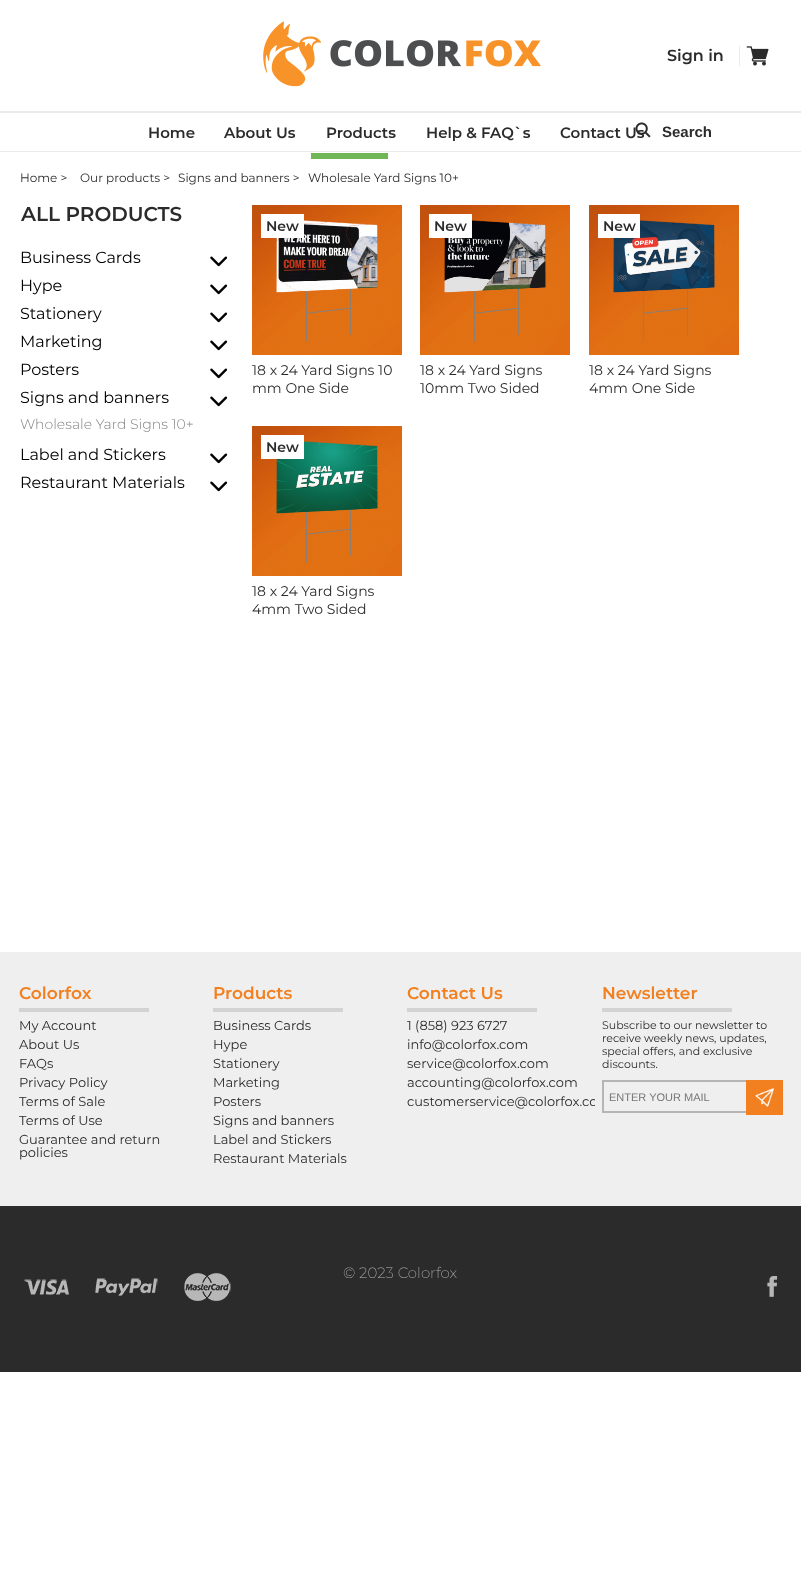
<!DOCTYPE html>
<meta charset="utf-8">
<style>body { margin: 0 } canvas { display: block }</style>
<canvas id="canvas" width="801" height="1587"></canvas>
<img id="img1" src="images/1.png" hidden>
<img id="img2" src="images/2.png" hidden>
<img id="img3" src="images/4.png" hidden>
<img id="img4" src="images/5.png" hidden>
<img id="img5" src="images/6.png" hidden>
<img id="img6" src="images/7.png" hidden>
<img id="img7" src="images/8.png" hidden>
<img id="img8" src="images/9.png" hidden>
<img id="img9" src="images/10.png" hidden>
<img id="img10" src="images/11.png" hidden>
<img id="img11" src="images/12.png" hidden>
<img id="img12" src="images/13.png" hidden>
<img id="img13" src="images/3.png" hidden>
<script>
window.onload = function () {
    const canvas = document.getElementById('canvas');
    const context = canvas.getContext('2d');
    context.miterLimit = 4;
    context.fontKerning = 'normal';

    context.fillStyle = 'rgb(255, 255, 255)';
    context.fillRect(0, 0, 801, 1587);
    context.drawImage(document.getElementById('img1'), 263, 21, 278, 66);
    context.fillStyle = 'rgb(234, 234, 234)';
    context.fillRect(739, 46, 1, 20);
    context.drawImage(document.getElementById('img2'), 746, 46, 23, 20);
    context.fillRect(0, 111, 801, 2);
    context.fillStyle = 'rgb(112, 183, 88)';
    context.fillRect(311, 153, 77, 6);
    context.fillStyle = 'rgb(234, 234, 234)';
    context.fillRect(0, 151, 801, 1);
    context.drawImage(document.getElementById('img3'), 210, 256, 18, 11);
    context.drawImage(document.getElementById('img3'), 210, 284, 18, 11);
    context.drawImage(document.getElementById('img3'), 210, 312, 18, 11);
    context.drawImage(document.getElementById('img3'), 210, 340, 18, 11);
    context.drawImage(document.getElementById('img3'), 210, 368, 18, 11);
    context.drawImage(document.getElementById('img3'), 210, 396, 18, 11);
    context.drawImage(document.getElementById('img3'), 210, 453, 18, 11);
    context.drawImage(document.getElementById('img3'), 210, 481, 18, 11);
    context.drawImage(document.getElementById('img4'), 252, 205, 150, 150);
    context.fillStyle = 'rgb(255, 255, 255)';
    context.fillRect(261, 214, 43, 24);
    context.drawImage(document.getElementById('img5'), 420, 205, 150, 150);
    context.fillRect(429, 214, 43, 24);
    context.drawImage(document.getElementById('img6'), 589, 205, 150, 150);
    context.fillRect(598, 214, 42, 24);
    context.drawImage(document.getElementById('img7'), 252, 426, 150, 150);
    context.fillRect(261, 435, 43, 24);
    context.fillStyle = 'rgb(239, 239, 239)';
    context.fillRect(0, 952, 801, 254);
    context.fillStyle = 'rgb(211, 211, 211)';
    context.fillRect(19, 1008, 130, 4);
    context.fillRect(213, 1008, 130, 4);
    context.fillRect(407, 1008, 130, 4);
    context.fillRect(602, 1008, 130, 4);
    context.fillStyle = 'rgb(181, 181, 181)';
    context.fillRect(602, 1080, 144, 2);
    context.fillRect(602, 1111, 144, 2);
    context.fillRect(602, 1080, 2, 33);
    context.fillStyle = 'rgb(243, 128, 32)';
    context.fillRect(746, 1080, 37, 35);
    context.drawImage(document.getElementById('img8'), 755, 1088, 19, 19);
    context.fillStyle = 'rgb(43, 43, 43)';
    context.fillRect(0, 1206, 801, 166);
    context.drawImage(document.getElementById('img9'), 23, 1279, 46, 16);
    context.drawImage(document.getElementById('img10'), 95, 1278, 63, 18);
    context.drawImage(document.getElementById('img11'), 184, 1273, 47, 28);
    context.drawImage(document.getElementById('img12'), 767, 1276, 11, 21);
    context.font = '600 16px Montserrat';
    context.fillText('Sign in', 667, 61);
    context.font = '600 15px Montserrat';
    context.fillText('Home', 148, 138);
    context.fillText('About Us', 224, 138);
    context.fillText('Products', 326, 138);
    context.fillText('Help & FAQ`s', 426, 138);
    context.fillText('Contact Us', 560, 138);
    context.drawImage(document.getElementById('img13'), 635, 122, 16, 16);
    context.font = 'bold 15px Liberation Sans';
    context.fillText('Search', 662, 137);
    context.font = '12px Montserrat';
    context.fillText('Home >', 20, 182);
    context.fillText('Our products >', 80, 182);
    context.fillText('Signs and banners >', 178, 182);
    context.fillText('Wholesale Yard Signs 10+', 308, 182);
    context.font = '600 20px Montserrat';
    context.fillText('ALL PRODUCTS', 21, 221);
    context.font = '16px Montserrat';
    context.fillStyle = 'rgb(0, 0, 0)';
    context.fillText('Business Cards', 20, 263);
    context.fillText('Hype', 20, 291);
    context.fillText('Stationery', 20, 319);
    context.fillText('Marketing', 20, 347);
    context.fillText('Posters', 20, 375);
    context.fillText('Signs and banners', 20, 403);
    context.font = '300 14px Montserrat';
    context.fillStyle = 'rgb(132, 132, 132)';
    context.fillText('Wholesale Yard Signs 10+', 20, 429);
    context.font = '16px Montserrat';
    context.fillStyle = 'rgb(0, 0, 0)';
    context.fillText('Label and Stickers', 20, 460);
    context.fillText('Restaurant Materials', 20, 488);
    context.font = '600 14px Montserrat';
    context.fillStyle = 'rgb(43, 43, 43)';
    context.fillText('New', 266, 231);
    context.font = '14px Montserrat';
    context.fillText('18 x 24 Yard Signs 10', 252, 375);
    context.fillText('mm One Side', 252, 393);
    context.font = '600 14px Montserrat';
    context.fillText('New', 434, 231);
    context.font = '14px Montserrat';
    context.fillText('18 x 24 Yard Signs', 420, 375);
    context.fillText('10mm Two Sided', 420, 393);
    context.font = '600 14px Montserrat';
    context.fillText('New', 603, 231);
    context.font = '14px Montserrat';
    context.fillText('18 x 24 Yard Signs', 589, 375);
    context.fillText('4mm One Side', 589, 393);
    context.font = '600 14px Montserrat';
    context.fillText('New', 266, 452);
    context.font = '14px Montserrat';
    context.fillText('18 x 24 Yard Signs', 252, 596);
    context.fillText('4mm Two Sided', 252, 614);
    context.font = '600 17px Montserrat';
    context.fillStyle = 'rgb(243, 128, 32)';
    context.fillText('Colorfox', 19, 999);
    context.font = '13px Montserrat';
    context.fillStyle = 'rgb(43, 43, 43)';
    context.fillText('My Account', 19, 1030);
    context.fillText('About Us', 19, 1049);
    context.fillText('FAQs', 19, 1068);
    context.fillText('Privacy Policy', 19, 1087);
    context.fillText('Terms of Sale', 19, 1106);
    context.fillText('Terms of Use', 19, 1125);
    context.fillText('Guarantee and return', 19, 1144);
    context.fillText('policies', 19, 1157);
    context.font = '600 17px Montserrat';
    context.fillStyle = 'rgb(243, 128, 32)';
    context.fillText('Products', 213, 999);
    context.font = '13px Montserrat';
    context.fillStyle = 'rgb(43, 43, 43)';
    context.fillText('Business Cards', 213, 1030);
    context.fillText('Hype', 213, 1049);
    context.fillText('Stationery', 213, 1068);
    context.fillText('Marketing', 213, 1087);
    context.fillText('Posters', 213, 1106);
    context.fillText('Signs and banners', 213, 1125);
    context.fillText('Label and Stickers', 213, 1144);
    context.fillText('Restaurant Materials', 213, 1163);
    context.font = '600 17px Montserrat';
    context.fillStyle = 'rgb(243, 128, 32)';
    context.fillText('Contact Us', 407, 999);
    context.font = '13px Montserrat';
    context.fillStyle = 'rgb(43, 43, 43)';
    context.fillText('1 (858) 923 6727', 407, 1030);
    context.fillText('info@colorfox.com', 407, 1049);
    context.fillText('service@colorfox.com', 407, 1068);
    context.fillText('accounting@colorfox.com', 407, 1087);
    context.save();
    context.beginPath();
    context.rect(400, 952, 195, 162);
    context.clip();
    context.fillText('customerservice@colorfox.co', 407, 1106);
    context.restore();
    context.font = '600 17px Montserrat';
    context.fillStyle = 'rgb(243, 128, 32)';
    context.fillText('Newsletter', 602, 999);
    context.font = '11px Montserrat';
    context.fillStyle = 'rgb(43, 43, 43)';
    context.fillText('Subscribe to our newsletter to', 602, 1029);
    context.fillText('receive weekly news, updates,', 602, 1042);
    context.fillText('special offers, and exclusive', 602, 1055);
    context.fillText('discounts.', 602, 1068);
    context.font = '11px Liberation Sans';
    context.fillStyle = 'rgb(117, 117, 117)';
    context.fillText('ENTER YOUR MAIL', 609, 1101);
    context.font = '200 15px Montserrat';
    context.fillStyle = 'rgb(183, 183, 183)';
    context.fillText('© 2023 Colorfox', 343, 1278);
};
</script>
